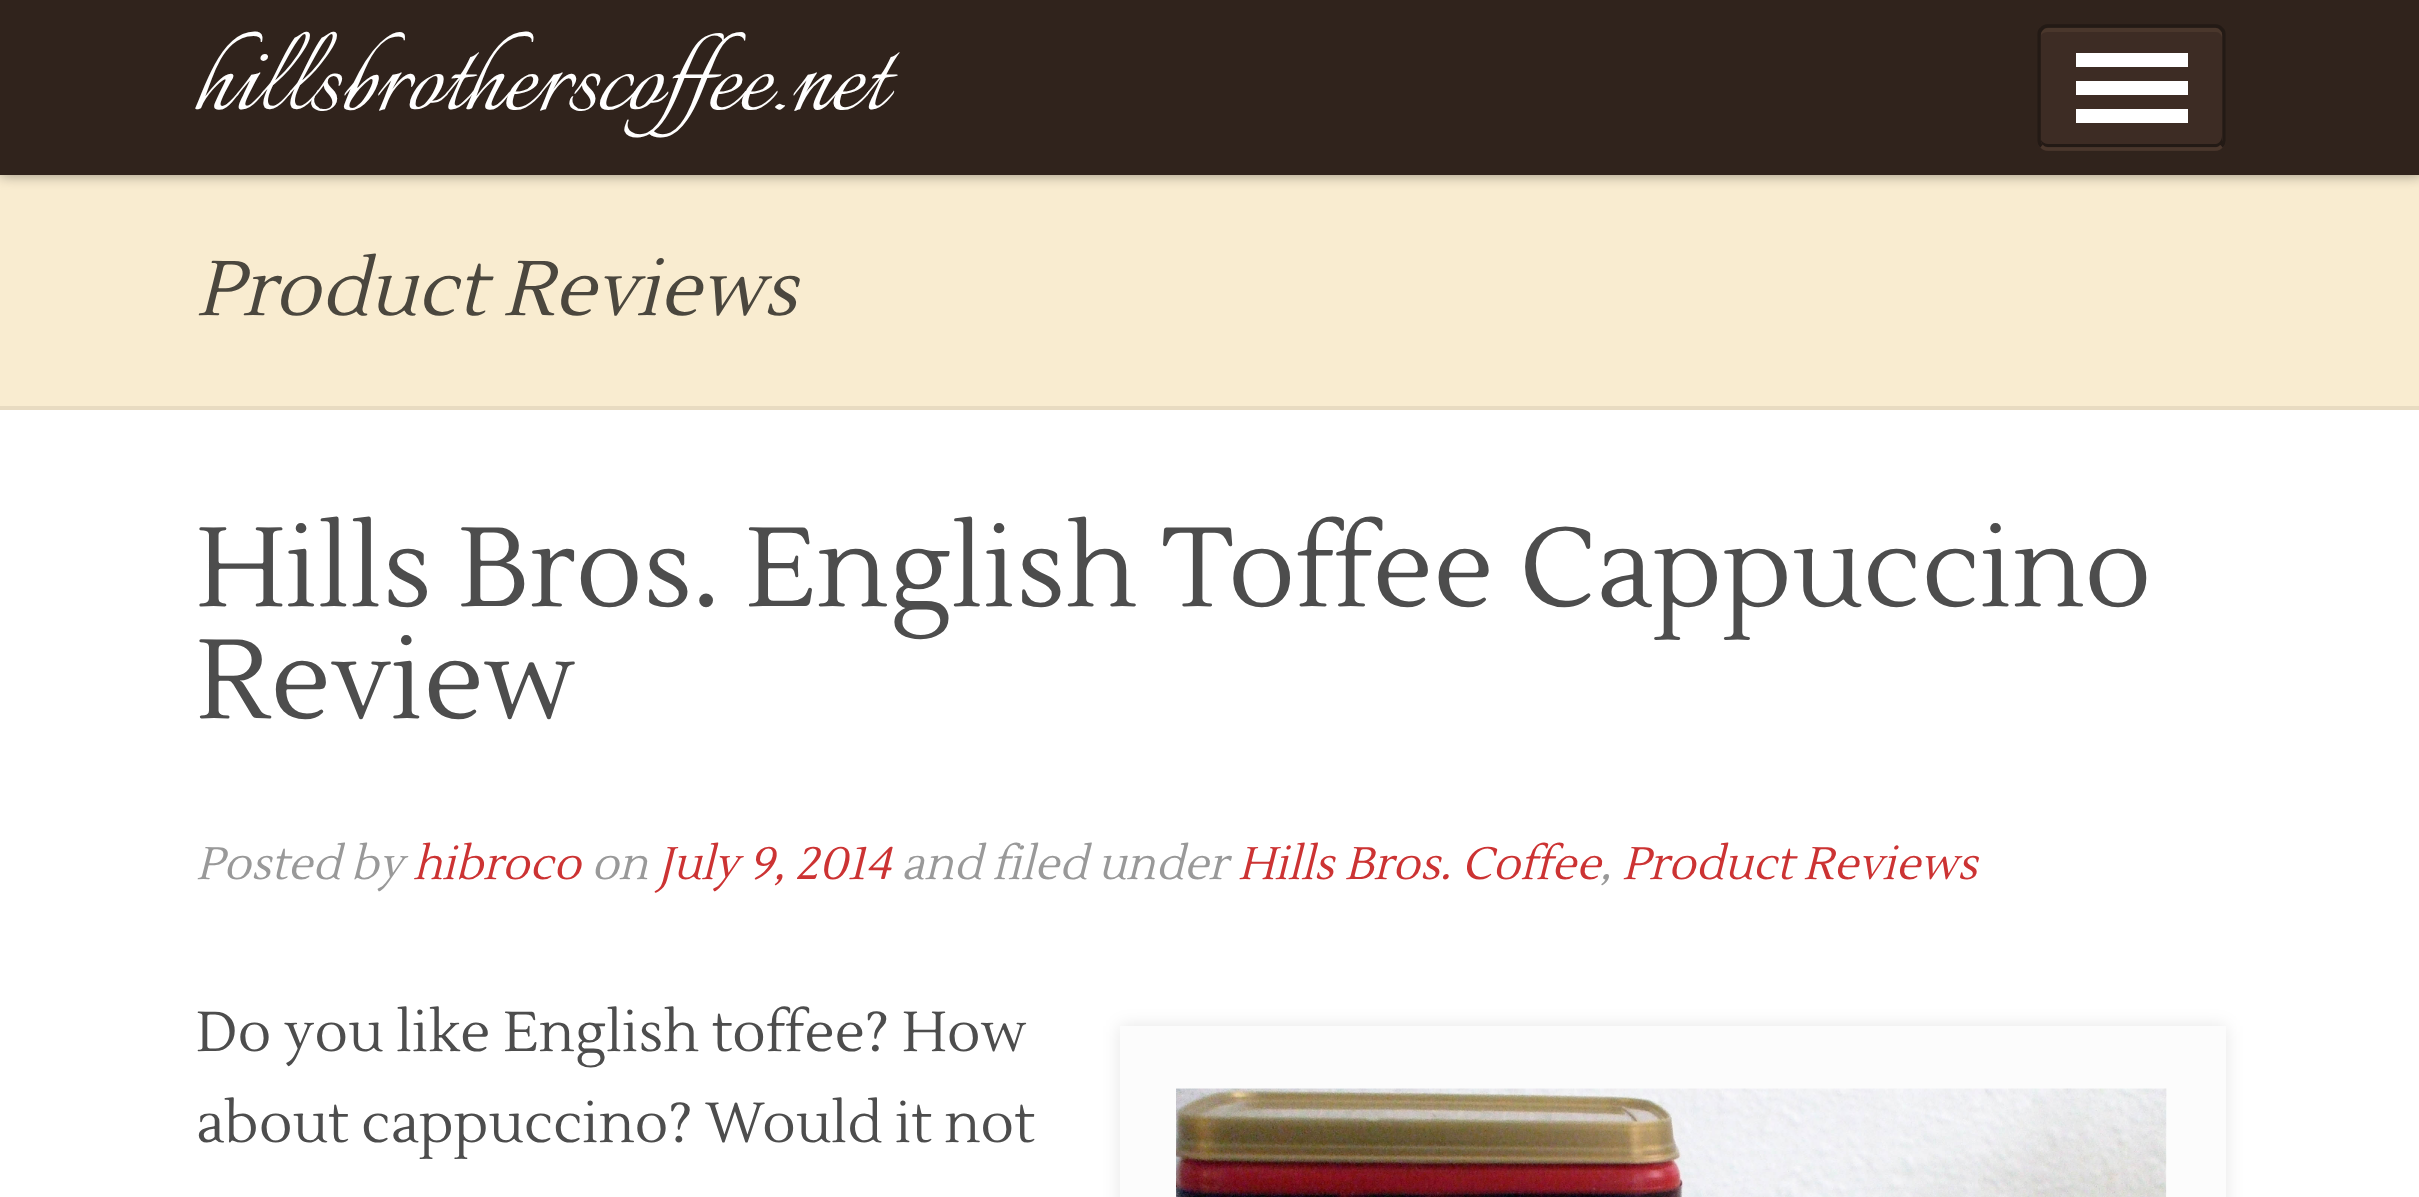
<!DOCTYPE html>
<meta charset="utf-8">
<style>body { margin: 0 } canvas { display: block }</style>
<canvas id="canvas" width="2419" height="1197"></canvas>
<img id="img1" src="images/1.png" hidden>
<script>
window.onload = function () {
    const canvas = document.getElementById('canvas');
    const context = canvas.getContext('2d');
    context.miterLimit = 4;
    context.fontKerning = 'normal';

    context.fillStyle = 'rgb(249, 236, 208)';
    context.fillRect(0, 0, 2419, 1197);
    context.fillStyle = 'rgba(0, 0, 0, 0.4)';
    context.filter = 'blur(7px)';
    context.beginPath();
    context.rect(0, 0, 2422, 175);
    context.fill();
    context.filter = 'none';
    context.fillStyle = 'rgb(48, 35, 28)';
    context.fillRect(0, 0, 2419, 175);
    context.fillStyle = 'rgb(61, 44, 36)';
    context.beginPath();
    context.roundRect(2037, 25, 189, 126, 11);
    context.fill();
    context.fillStyle = 'rgb(35, 26, 21)';
    context.beginPath();
    context.moveTo(2041, 140);
    context.bezierCurveTo(2041, 144, 2044, 147, 2048, 147);
    context.lineTo(2216, 147);
    context.bezierCurveTo(2220, 147, 2223, 144, 2223, 140);
    context.lineTo(2223, 35);
    context.bezierCurveTo(2223, 34, 2223, 32, 2222, 31);
    context.lineTo(2222, 136);
    context.bezierCurveTo(2222, 140, 2219, 144, 2216, 144);
    context.lineTo(2048, 144);
    context.bezierCurveTo(2045, 144, 2042, 142, 2041, 140);
    context.closePath();
    context.fill();
    context.fillStyle = 'rgb(74, 55, 44)';
    context.beginPath();
    context.moveTo(2048, 32);
    context.lineTo(2216, 32);
    context.bezierCurveTo(2219, 32, 2222, 35, 2222, 38);
    context.lineTo(2222, 144);
    context.bezierCurveTo(2223, 143, 2223, 141, 2223, 140);
    context.lineTo(2223, 35);
    context.bezierCurveTo(2223, 31, 2220, 28, 2216, 28);
    context.lineTo(2048, 28);
    context.bezierCurveTo(2044, 28, 2041, 31, 2041, 35);
    context.bezierCurveTo(2042, 33, 2045, 32, 2048, 32);
    context.closePath();
    context.fill();
    context.beginPath();
    context.moveTo(2221.5, 146);
    context.bezierCurveTo(2220, 148, 2218, 149, 2215.5, 149);
    context.lineTo(2047.5, 149);
    context.bezierCurveTo(2045, 149, 2043, 148, 2041.5, 146);
    context.strokeStyle = 'rgb(74, 55, 44)';
    context.lineWidth = 3.5;
    context.stroke();
    context.beginPath();
    context.moveTo(2041.5, 146);
    context.bezierCurveTo(2039.5, 144.5, 2039, 142.5, 2039, 140);
    context.lineTo(2039, 35);
    context.bezierCurveTo(2039, 32.5, 2039.5, 30.5, 2041.5, 29);
    context.bezierCurveTo(2043, 27, 2045, 26, 2047.5, 26);
    context.lineTo(2215.5, 26);
    context.bezierCurveTo(2218, 26, 2220, 27, 2221.5, 29);
    context.bezierCurveTo(2223.5, 30.5, 2224, 32.5, 2224, 35);
    context.lineTo(2224, 140);
    context.bezierCurveTo(2224, 142.5, 2223.5, 144.5, 2221.5, 146);
    context.strokeStyle = 'rgb(35, 26, 21)';
    context.stroke();
    context.fillStyle = 'rgb(255, 255, 255)';
    context.fillRect(2076, 53, 112, 14);
    context.fillRect(2076, 81, 112, 14);
    context.fillRect(2076, 109, 112, 14);
    context.fillStyle = 'rgb(232, 219, 193)';
    context.fillRect(0, 406, 2419, 4);
    context.fillStyle = 'rgb(255, 255, 255)';
    context.fillRect(0, 410, 2419, 787);
    context.fillStyle = 'rgba(0, 0, 0, 0.1)';
    context.filter = 'blur(9px)';
    context.beginPath();
    context.rect(1120, 1026, 1106, 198);
    context.fill();
    context.filter = 'none';
    context.fillStyle = 'rgb(252, 252, 252)';
    context.fillRect(1120, 1026, 1106, 171);
    context.fillStyle = 'rgb(255, 255, 255)';
    context.fillRect(2166, 1089, 1, 108);
    context.drawImage(document.getElementById('img1'), 1176, 1088, 991, 109);
    context.font = '126px Italianno';
    context.fillText('hillsbrotherscoffee.net', 196, 109);
    context.font = 'italic 77px Lustria';
    context.fillStyle = 'rgb(75, 71, 62)';
    context.fillText('Product Reviews', 196, 315);
    context.font = '112px Lustria';
    context.fillStyle = 'rgb(77, 77, 77)';
    context.fillText('Hills Bros. English Toffee Cappuccino', 196, 606);
    context.fillText('Review', 196, 718);
    context.font = 'italic 45.5px Lustria';
    context.fillStyle = 'rgb(153, 153, 153)';
    context.fillText('Posted by', 196, 879);
    context.fillStyle = 'rgb(204, 51, 51)';
    context.fillText('hibroco', 413, 879);
    context.fillStyle = 'rgb(153, 153, 153)';
    context.fillText('on', 591, 879);
    context.fillStyle = 'rgb(204, 51, 51)';
    context.fillText('July 9, 2014', 658, 879);
    context.fillStyle = 'rgb(153, 153, 153)';
    context.fillText('and filed under', 901, 879);
    context.fillStyle = 'rgb(204, 51, 51)';
    context.fillText('Hills Bros. Coffee', 1238, 879);
    context.fillStyle = 'rgb(153, 153, 153)';
    context.fillText(',', 1600, 879);
    context.fillStyle = 'rgb(204, 51, 51)';
    context.fillText('Product Reviews', 1622, 879);
    context.font = '56px Lustria';
    context.fillStyle = 'rgb(77, 77, 77)';
    context.fillText('Do you like English toffee? How', 196, 1051);
    context.fillText('about cappuccino? Would it not', 196, 1142);
};
</script>
